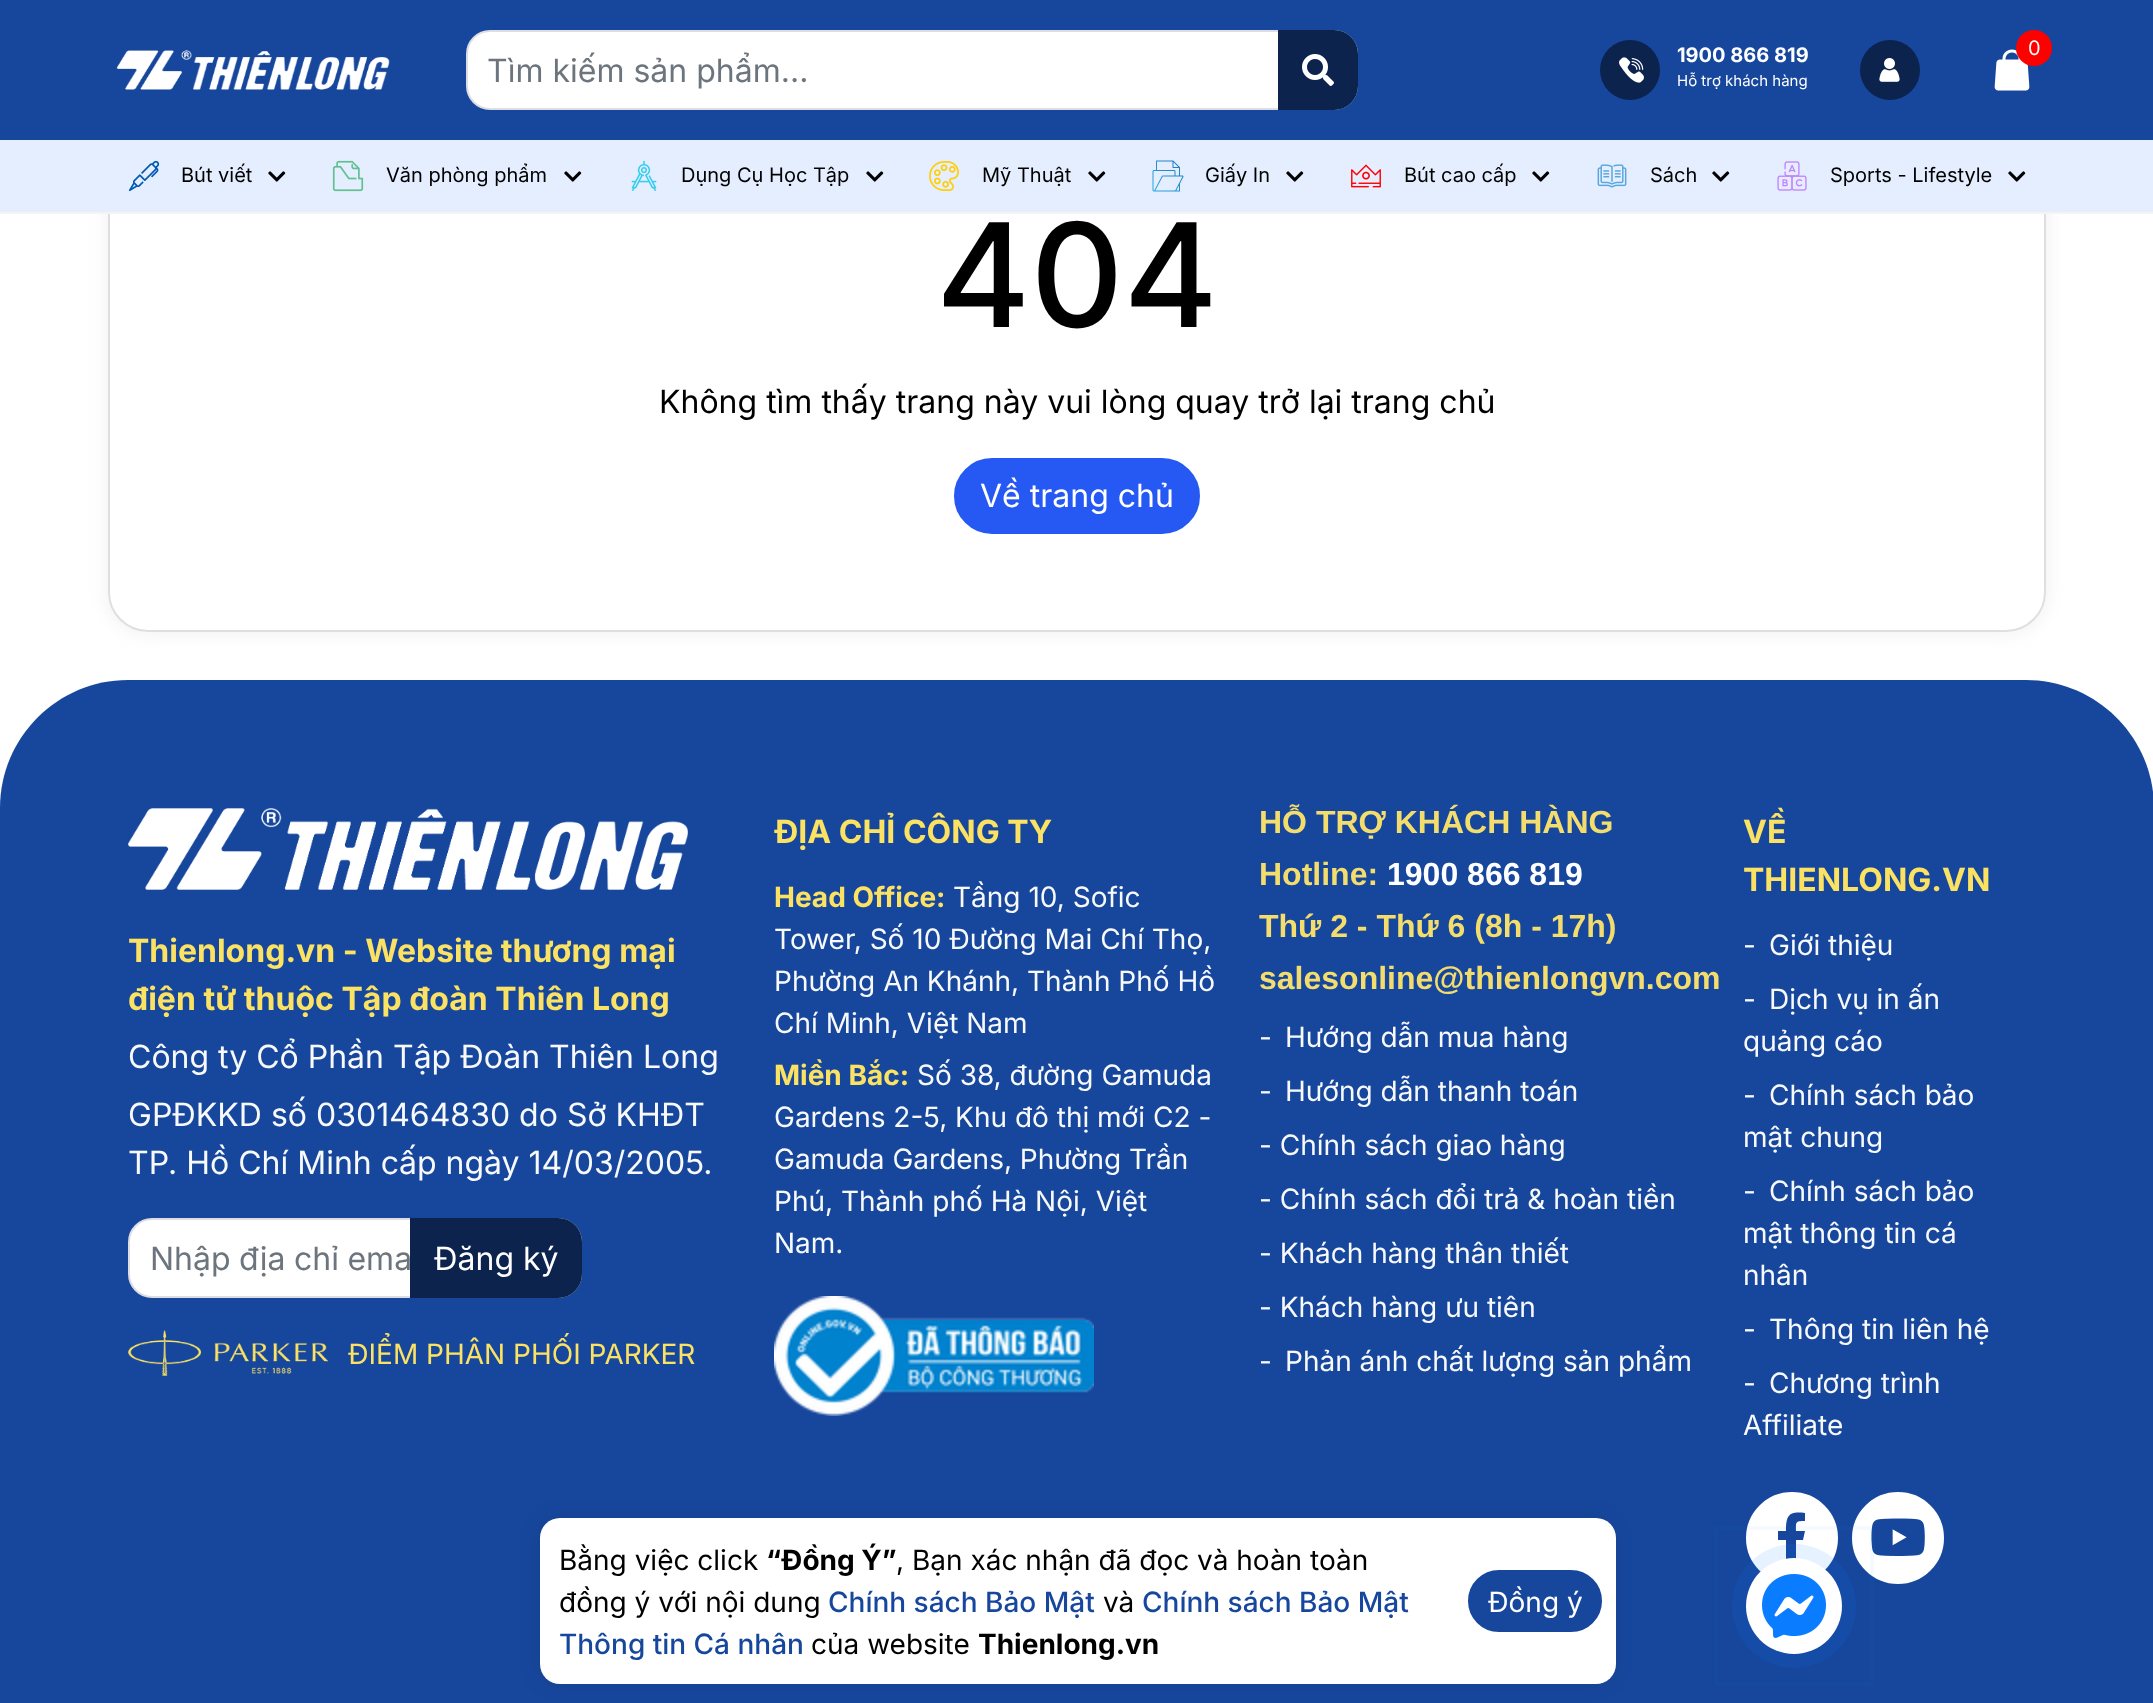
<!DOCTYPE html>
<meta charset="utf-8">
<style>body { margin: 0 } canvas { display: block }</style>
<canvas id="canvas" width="2153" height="1703"></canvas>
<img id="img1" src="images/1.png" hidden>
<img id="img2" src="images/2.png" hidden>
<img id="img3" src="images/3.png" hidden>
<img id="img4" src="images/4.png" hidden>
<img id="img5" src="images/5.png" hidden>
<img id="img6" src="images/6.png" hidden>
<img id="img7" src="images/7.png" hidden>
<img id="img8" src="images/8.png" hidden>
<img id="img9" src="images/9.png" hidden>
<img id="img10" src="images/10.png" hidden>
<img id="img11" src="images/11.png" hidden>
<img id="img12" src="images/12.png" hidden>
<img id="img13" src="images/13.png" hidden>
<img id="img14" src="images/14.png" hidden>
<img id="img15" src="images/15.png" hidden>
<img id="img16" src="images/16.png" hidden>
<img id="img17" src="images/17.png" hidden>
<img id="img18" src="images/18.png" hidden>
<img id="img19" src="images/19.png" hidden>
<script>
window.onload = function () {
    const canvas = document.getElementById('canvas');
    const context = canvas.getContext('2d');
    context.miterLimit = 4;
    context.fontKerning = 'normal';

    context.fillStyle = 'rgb(255, 255, 255)';
    context.fillRect(0, 0, 2153, 1703);
    context.fillStyle = 'rgba(179, 179, 179, 0.15)';
    context.filter = 'blur(8px)';
    context.beginPath();
    context.roundRect(104, 86, 1946, 550, 44);
    context.fill();
    context.filter = 'none';
    context.fillStyle = 'rgb(255, 255, 255)';
    context.beginPath();
    context.roundRect(109, 91, 1936, 540, 39);
    context.fill();
    context.strokeStyle = 'rgb(223, 223, 223)';
    context.lineWidth = 2;
    context.stroke();
    context.fillStyle = 'rgb(23, 71, 157)';
    context.fillRect(0, 0, 2153, 140);
    context.drawImage(document.getElementById('img1'), 116, 50, 274, 40);
    context.fillStyle = 'rgb(255, 255, 255)';
    context.beginPath();
    context.roundRect(467, 31, 890, 78, 23);
    context.fill();
    context.strokeStyle = 'rgb(221, 221, 227)';
    context.stroke();
    context.fillStyle = 'rgb(11, 35, 77)';
    context.beginPath();
    context.roundRect(1278, 30, 80, 80, [0, 24, 24, 0]);
    context.fill();
    context.drawImage(document.getElementById('img2'), 1302, 54, 32, 32);
    context.beginPath();
    context.arc(1630, 70, 30, 0, 2 * Math.PI);
    context.fill();
    context.drawImage(document.getElementById('img3'), 1619, 57, 25, 26);
    context.beginPath();
    context.arc(1890, 70, 30, 0, 2 * Math.PI);
    context.fill();
    context.drawImage(document.getElementById('img4'), 1879, 58, 21, 24);
    context.drawImage(document.getElementById('img5'), 1994, 49, 36, 42);
    context.fillStyle = 'rgb(255, 0, 0)';
    context.beginPath();
    context.arc(2034, 48, 18, 0, 2 * Math.PI);
    context.fill();
    context.fillStyle = 'rgb(244, 244, 244)';
    context.fillRect(0, 212, 2153, 2);
    context.fillStyle = 'rgb(229, 238, 255)';
    context.fillRect(0, 140, 2153, 72);
    context.drawImage(document.getElementById('img6'), 128, 160, 32, 32);
    context.drawImage(document.getElementById('img7'), 268, 171, 18, 11);
    context.drawImage(document.getElementById('img8'), 332, 160, 32, 32);
    context.drawImage(document.getElementById('img7'), 564, 171, 18, 11);
    context.drawImage(document.getElementById('img9'), 631, 160, 26, 31);
    context.drawImage(document.getElementById('img7'), 866, 171, 18, 11);
    context.drawImage(document.getElementById('img10'), 929, 161, 30, 30);
    context.drawImage(document.getElementById('img7'), 1088, 171, 18, 11);
    context.drawImage(document.getElementById('img11'), 1152, 160, 32, 32);
    context.drawImage(document.getElementById('img7'), 1286, 171, 18, 11);
    context.drawImage(document.getElementById('img12'), 1351, 164, 30, 24);
    context.drawImage(document.getElementById('img7'), 1532, 171, 18, 11);
    context.drawImage(document.getElementById('img13'), 1597, 164, 30, 24);
    context.drawImage(document.getElementById('img7'), 1712, 171, 18, 11);
    context.drawImage(document.getElementById('img14'), 1777, 161, 30, 30);
    context.drawImage(document.getElementById('img7'), 2008, 171, 18, 11);
    context.fillStyle = 'rgb(38, 89, 243)';
    context.beginPath();
    context.roundRect(955, 459, 244, 74, 37);
    context.fill();
    context.strokeStyle = 'rgb(38, 89, 243)';
    context.stroke();
    context.fillStyle = 'rgb(23, 71, 157)';
    context.beginPath();
    context.moveTo(128, 680);
    context.lineTo(2026, 680);
    context.bezierCurveTo(2096.5, 680, 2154, 737.5, 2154, 808);
    context.lineTo(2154, 1618);
    context.lineTo(0, 1618);
    context.lineTo(0, 808);
    context.bezierCurveTo(0, 737.5, 57.5, 680, 128, 680);
    context.closePath();
    context.fill();
    context.drawImage(document.getElementById('img15'), 128, 808, 560, 82);
    context.fillStyle = 'rgb(255, 255, 255)';
    context.beginPath();
    context.roundRect(129, 1219, 452, 78, 23);
    context.fill();
    context.strokeStyle = 'rgb(221, 221, 227)';
    context.stroke();
    context.fillStyle = 'rgb(11, 35, 77)';
    context.beginPath();
    context.roundRect(410, 1218, 172, 80, [0, 24, 24, 0]);
    context.fill();
    context.drawImage(document.getElementById('img16'), 128, 1330, 200, 46);
    context.drawImage(document.getElementById('img17'), 774, 1296, 320, 120);
    context.fillStyle = 'rgb(255, 255, 255)';
    context.beginPath();
    context.arc(1792, 1538, 47, 0, 2 * Math.PI);
    context.fill();
    context.strokeStyle = 'rgb(23, 71, 157)';
    context.stroke();
    context.fillStyle = 'rgb(23, 71, 157)';
    context.beginPath();
    context.moveTo(1803, 1540);
    context.lineTo(1796, 1540);
    context.lineTo(1796, 1562);
    context.lineTo(1786, 1562);
    context.lineTo(1786, 1540);
    context.lineTo(1778, 1540);
    context.lineTo(1778, 1531);
    context.lineTo(1786, 1531);
    context.bezierCurveTo(1786, 1515, 1789, 1511, 1805, 1513);
    context.lineTo(1805, 1521);
    context.bezierCurveTo(1795, 1521, 1796, 1522, 1796, 1531);
    context.lineTo(1805, 1531);
    context.closePath();
    context.fill();
    context.fillStyle = 'rgb(255, 255, 255)';
    context.beginPath();
    context.arc(1898, 1538, 47, 0, 2 * Math.PI);
    context.fill();
    context.stroke();
    context.drawImage(document.getElementById('img18'), 1871, 1518, 54, 38);
    context.fillStyle = 'rgb(23, 71, 157)';
    context.fillRect(0, 1618, 2153, 85);
    context.fillStyle = 'rgba(0, 0, 0, 0.09)';
    context.filter = 'blur(10px)';
    context.beginPath();
    context.roundRect(538, 1518, 1076, 166, 20);
    context.fill();
    context.filter = 'none';
    context.fillStyle = 'rgb(255, 255, 255)';
    context.beginPath();
    context.roundRect(540, 1518, 1076, 166, 20);
    context.fill();
    context.fillStyle = 'rgb(23, 71, 157)';
    context.beginPath();
    context.roundRect(1467, 1569, 136, 64, 32);
    context.fill();
    context.strokeStyle = 'rgb(255, 255, 255)';
    context.stroke();
    context.fillStyle = 'rgba(10, 124, 255, 0.1)';
    context.beginPath();
    context.arc(1794, 1606, 62, 0, 2 * Math.PI);
    context.fill();
    context.fillStyle = 'rgb(255, 255, 255)';
    context.beginPath();
    context.arc(1794, 1606, 48, 0, 2 * Math.PI);
    context.fill();
    context.drawImage(document.getElementById('img19'), 1762, 1574, 64, 64);
    context.strokeStyle = 'rgba(10, 124, 255, 0.04)';
    context.lineWidth = 4;
    context.strokeRect(1716, 1528, 156, 156);
    context.font = '32px Inter';
    context.fillStyle = 'rgb(108, 117, 125)';
    context.fillText('Tìm kiếm sản phẩm...', 487, 82);
    context.font = 'bold 20px Inter';
    context.fillStyle = 'rgb(255, 255, 255)';
    context.fillText('1900 866 819', 1677, 62);
    context.font = '15px Inter';
    context.fillText('Hỗ trợ khách hàng', 1677, 86);
    context.font = '20px Inter';
    context.fillText('0', 2028, 55);
    context.fillStyle = 'rgb(0, 0, 0)';
    context.fillText('Bút viết', 181, 182);
    context.fillText('Văn phòng phẩm', 386, 182);
    context.fillText('Dụng Cụ Học Tập', 681, 182);
    context.fillText('Mỹ Thuật', 982, 182);
    context.fillText('Giấy In', 1205, 182);
    context.fillText('Bút cao cấp', 1404, 182);
    context.fillText('Sách', 1650, 182);
    context.fillText('Sports - Lifestyle', 1830, 182);
    context.font = '500 144px Inter';
    context.fillText('404', 936, 327);
    context.font = '32px Inter';
    context.fillText('Không tìm thấy trang này vui lòng quay trở lại trang chủ', 659, 413);
    context.fillStyle = 'rgb(255, 255, 255)';
    context.fillText('Về trang chủ', 980, 507);
    context.font = 'bold 32px Inter';
    context.fillStyle = 'rgb(251, 226, 99)';
    context.fillText('Thienlong.vn - Website thương mại', 128, 962);
    context.fillText('điện tử thuộc Tập đoàn Thiên Long', 128, 1010);
    context.font = '32px Inter';
    context.fillStyle = 'rgb(248, 249, 250)';
    context.fillText('Công ty Cổ Phần Tập Đoàn Thiên Long', 128, 1068);
    context.fillText('GPĐKKD số 0301464830 do Sở KHĐT', 128, 1126);
    context.fillText('TP. Hồ Chí Minh cấp ngày 14/03/2005.', 128, 1174);
    context.wordSpacing = '-0.5px';
    context.fillStyle = 'rgb(108, 117, 125)';
    context.fillText('Nhập địa chỉ ema', 150, 1270);
    context.wordSpacing = '0px';
    context.fillStyle = 'rgb(255, 255, 255)';
    context.fillText('Đăng ký', 434, 1270);
    context.font = '28px Inter';
    context.fillStyle = 'rgb(251, 226, 99)';
    context.fillText('ĐIỂM PHÂN PHỐI PARKER', 348, 1364);
    context.font = 'bold 32px Inter';
    context.fillText('ĐỊA CHỈ CÔNG TY', 774, 843);
    context.font = 'bold 28px Inter';
    context.fillText('Head Office:', 774, 907);
    context.font = '28px Inter';
    context.fillStyle = 'rgb(248, 249, 250)';
    context.fillText('Tầng 10, Sofic', 953, 907);
    context.fillText('Tower, Số 10 Đường Mai Chí Thọ,', 774, 949);
    context.fillText('Phường An Khánh, Thành Phố Hồ', 774, 991);
    context.fillText('Chí Minh, Việt Nam', 774, 1033);
    context.font = 'bold 28px Inter';
    context.fillStyle = 'rgb(251, 226, 99)';
    context.fillText('Miền Bắc:', 774, 1085);
    context.font = '28px Inter';
    context.fillStyle = 'rgb(248, 249, 250)';
    context.fillText('Số 38, đường Gamuda', 917, 1085);
    context.fillText('Gardens 2-5, Khu đô thị mới C2 -', 774, 1127);
    context.fillText('Gamuda Gardens, Phường Trần', 774, 1169);
    context.fillText('Phú, Thành phố Hà Nội, Việt', 774, 1211);
    context.fillText('Nam.', 774, 1253);
    context.font = 'bold 32px Liberation Sans';
    context.fillStyle = 'rgb(243, 221, 108)';
    context.fillText('HỖ TRỢ KHÁCH HÀNG', 1259, 833);
    context.fillText('Hotline:', 1259, 885);
    context.fillStyle = 'rgb(255, 255, 255)';
    context.fillText('1900 866 819', 1387, 885);
    context.fillStyle = 'rgb(243, 221, 108)';
    context.fillText('Thứ 2 - Thứ 6 (8h - 17h)', 1259, 937);
    context.fillText('salesonline@thienlongvn.com', 1259, 989);
    context.font = '28px Inter';
    context.fillStyle = 'rgb(248, 249, 250)';
    context.fillText('-', 1259, 1047);
    context.fillText('Hướng dẫn mua hàng', 1285, 1047);
    context.fillText('-', 1259, 1101);
    context.fillText('Hướng dẫn thanh toán', 1285, 1101);
    context.fillText('- Chính sách giao hàng', 1259, 1155);
    context.fillText('- Chính sách đổi trả & hoàn tiền', 1259, 1209);
    context.fillText('- Khách hàng thân thiết', 1259, 1263);
    context.fillText('- Khách hàng ưu tiên', 1259, 1317);
    context.fillText('-', 1259, 1371);
    context.fillText('Phản ánh chất lượng sản phẩm', 1285, 1371);
    context.font = 'bold 32px Inter';
    context.fillStyle = 'rgb(251, 226, 99)';
    context.fillText('VỀ', 1743, 843);
    context.fillText('THIENLONG.VN', 1743, 891);
    context.font = '28px Inter';
    context.fillStyle = 'rgb(248, 249, 250)';
    context.fillText('-', 1743, 955);
    context.fillText('Giới thiệu', 1769, 955);
    context.fillText('-', 1743, 1009);
    context.fillText('Dịch vụ in ấn', 1769, 1009);
    context.fillText('quảng cáo', 1743, 1051);
    context.fillText('-', 1743, 1105);
    context.fillText('Chính sách bảo', 1769, 1105);
    context.fillText('mật chung', 1743, 1147);
    context.fillText('-', 1743, 1201);
    context.fillText('Chính sách bảo', 1769, 1201);
    context.fillText('mật thông tin cá', 1743, 1243);
    context.fillText('nhân', 1743, 1285);
    context.fillText('-', 1743, 1339);
    context.fillText('Thông tin liên hệ', 1769, 1339);
    context.fillText('-', 1743, 1393);
    context.fillText('Chương trình', 1769, 1393);
    context.fillText('Affiliate', 1743, 1435);
    context.fillStyle = 'rgb(0, 0, 0)';
    context.fillText('Bằng việc click', 559, 1570);
    context.font = 'bold 28px Inter';
    context.fillText('“Đồng Ý”', 766, 1570);
    context.font = '28px Inter';
    context.fillText(', Bạn xác nhận đã đọc và hoàn toàn', 896, 1570);
    context.fillText('đồng ý với nội dung', 559, 1612);
    context.font = '500 28px Inter';
    context.fillStyle = 'rgb(23, 71, 157)';
    context.fillText('Chính sách Bảo Mật', 828, 1612);
    context.font = '28px Inter';
    context.fillStyle = 'rgb(0, 0, 0)';
    context.fillText('và', 1103, 1612);
    context.font = '500 28px Inter';
    context.fillStyle = 'rgb(23, 71, 157)';
    context.fillText('Chính sách Bảo Mật', 1142, 1612);
    context.fillText('Thông tin Cá nhân', 559, 1654);
    context.font = '28px Inter';
    context.fillStyle = 'rgb(0, 0, 0)';
    context.fillText('của website', 811, 1654);
    context.font = 'bold 28px Inter';
    context.fillText('Thienlong.vn', 978, 1654);
    context.font = '28px Inter';
    context.fillStyle = 'rgb(255, 255, 255)';
    context.fillText('Đồng ý', 1488, 1612);
};
</script>
